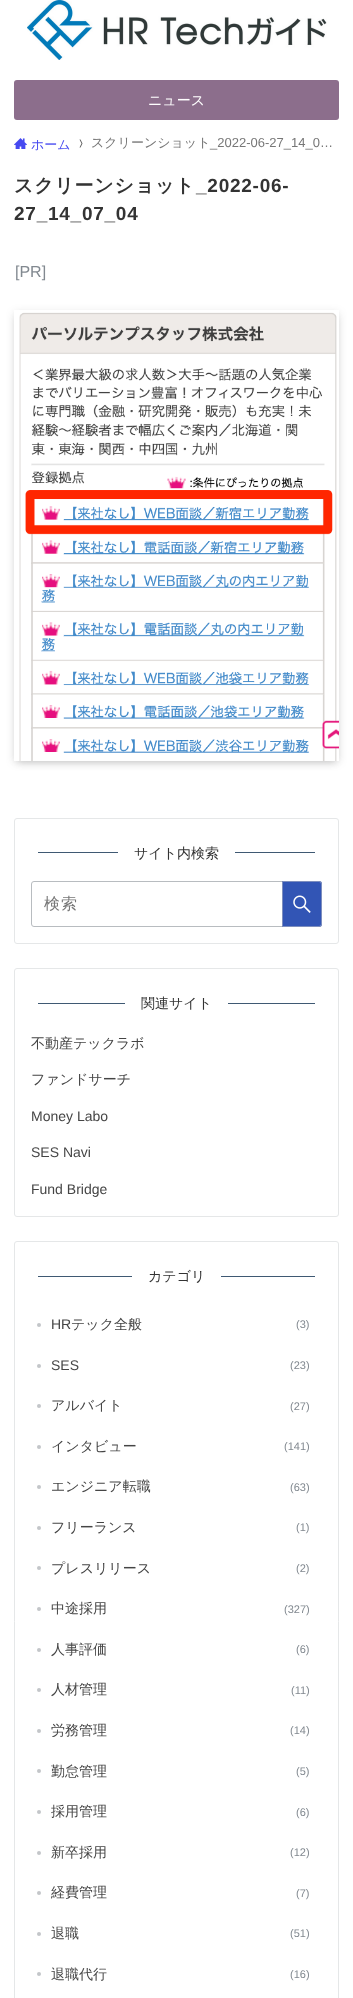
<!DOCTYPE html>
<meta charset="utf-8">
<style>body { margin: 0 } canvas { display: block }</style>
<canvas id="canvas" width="353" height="1998"></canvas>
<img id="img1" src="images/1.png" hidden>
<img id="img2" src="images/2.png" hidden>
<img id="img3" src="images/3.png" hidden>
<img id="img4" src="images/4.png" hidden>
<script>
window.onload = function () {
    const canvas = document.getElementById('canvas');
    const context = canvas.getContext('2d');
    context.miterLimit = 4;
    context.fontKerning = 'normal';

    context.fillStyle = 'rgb(255, 255, 255)';
    context.fillRect(0, 0, 353, 1998);
    context.drawImage(document.getElementById('img1'), 27, 0, 300, 60);
    context.fillStyle = 'rgb(140, 110, 140)';
    context.beginPath();
    context.roundRect(14, 80, 325, 40, 3);
    context.fill();
    context.drawImage(document.getElementById('img2'), 14, 138, 13, 11);
    context.fillStyle = 'rgb(92, 92, 92)';
    context.beginPath();
    context.moveTo(80.5, 139.5);
    context.lineTo(79.5, 139.5);
    context.lineTo(81.5, 143.5);
    context.lineTo(79.5, 147.5);
    context.lineTo(80.5, 147.5);
    context.lineTo(82.5, 143.5);
    context.closePath();
    context.fill();
    context.save();
    context.beginPath();
    context.moveTo(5, 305);
    context.lineTo(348, 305);
    context.lineTo(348, 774);
    context.lineTo(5, 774);
    context.closePath();
    context.moveTo(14, 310);
    context.lineTo(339, 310);
    context.lineTo(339, 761);
    context.lineTo(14, 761);
    context.closePath();
    context.clip('evenodd');
    context.fillStyle = 'rgba(0, 0, 0, 0.2)';
    context.filter = 'blur(4px)';
    context.beginPath();
    context.rect(18, 318, 317, 443);
    context.fill();
    context.filter = 'none';
    context.restore();
    context.save();
    context.beginPath();
    context.moveTo(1, 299);
    context.lineTo(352, 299);
    context.lineTo(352, 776);
    context.lineTo(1, 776);
    context.closePath();
    context.moveTo(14, 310);
    context.lineTo(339, 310);
    context.lineTo(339, 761);
    context.lineTo(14, 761);
    context.closePath();
    context.clip('evenodd');
    context.fillStyle = 'rgba(0, 0, 0, 0.1)';
    context.filter = 'blur(4px)';
    context.beginPath();
    context.rect(14, 312, 325, 451);
    context.fill();
    context.filter = 'none';
    context.restore();
    context.drawImage(document.getElementById('img3'), 19, 312, 320, 449);
    context.beginPath();
    context.roundRect(14.5, 818.5, 324, 125, 2.5);
    context.strokeStyle = 'rgb(229, 231, 232)';
    context.stroke();
    context.fillStyle = 'rgb(63, 89, 115)';
    context.fillRect(38, 852, 80, 1);
    context.fillRect(235, 852, 80, 1);
    context.beginPath();
    context.roundRect(31.5, 881.5, 290, 45, 2.5);
    context.strokeStyle = 'rgb(184, 188, 192)';
    context.stroke();
    context.fillStyle = 'rgb(50, 85, 181)';
    context.beginPath();
    context.roundRect(282, 881, 40, 46, [0, 3, 3, 0]);
    context.fill();
    context.beginPath();
    context.roundRect(282.5, 881.5, 39, 45, [0, 2.5, 2.5, 0]);
    context.strokeStyle = 'rgba(199, 199, 199, 0.5)';
    context.stroke();
    context.drawImage(document.getElementById('img4'), 293, 895, 18, 18);
    context.beginPath();
    context.roundRect(14.5, 968.5, 324, 248, 2.5);
    context.strokeStyle = 'rgb(229, 231, 232)';
    context.stroke();
    context.fillStyle = 'rgb(63, 89, 115)';
    context.fillRect(38, 1003, 87, 1);
    context.fillRect(228, 1003, 87, 1);
    context.beginPath();
    context.roundRect(14.5, 1241.5, 324, 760, 2.5);
    context.stroke();
    context.fillRect(38, 1276, 94, 1);
    context.fillRect(221, 1276, 94, 1);
    context.fillStyle = 'rgb(195, 198, 201)';
    context.beginPath();
    context.arc(39, 1325, 2, 0, 2 * Math.PI);
    context.fill();
    context.beginPath();
    context.arc(39, 1366, 2, 0, 2 * Math.PI);
    context.fill();
    context.beginPath();
    context.arc(39, 1406, 2, 0, 2 * Math.PI);
    context.fill();
    context.beginPath();
    context.arc(39, 1447, 2, 0, 2 * Math.PI);
    context.fill();
    context.beginPath();
    context.arc(39, 1487, 2, 0, 2 * Math.PI);
    context.fill();
    context.beginPath();
    context.arc(39, 1528, 2, 0, 2 * Math.PI);
    context.fill();
    context.beginPath();
    context.arc(39, 1568, 2, 0, 2 * Math.PI);
    context.fill();
    context.beginPath();
    context.arc(39, 1609, 2, 0, 2 * Math.PI);
    context.fill();
    context.beginPath();
    context.arc(39, 1650, 2, 0, 2 * Math.PI);
    context.fill();
    context.beginPath();
    context.arc(39, 1690, 2, 0, 2 * Math.PI);
    context.fill();
    context.beginPath();
    context.arc(39, 1731, 2, 0, 2 * Math.PI);
    context.fill();
    context.beginPath();
    context.arc(39, 1771, 2, 0, 2 * Math.PI);
    context.fill();
    context.beginPath();
    context.arc(39, 1812, 2, 0, 2 * Math.PI);
    context.fill();
    context.beginPath();
    context.arc(39, 1853, 2, 0, 2 * Math.PI);
    context.fill();
    context.beginPath();
    context.arc(39, 1893, 2, 0, 2 * Math.PI);
    context.fill();
    context.beginPath();
    context.arc(39, 1934, 2, 0, 2 * Math.PI);
    context.fill();
    context.beginPath();
    context.arc(39, 1974, 2, 0, 2 * Math.PI);
    context.fill();
    context.font = '500 14px WenQuanYi Zen Hei';
    context.fillStyle = 'rgb(255, 255, 255)';
    context.fillText('ニュース', 148, 105);
    context.font = '500 13px WenQuanYi Zen Hei';
    context.fillStyle = 'rgb(70, 73, 240)';
    context.fillText('ホーム', 31, 149);
    context.fillStyle = 'rgb(119, 119, 119)';
    context.fillText('スクリーンショット', 91, 147);
    context.font = '13px Liberation Sans';
    context.fillText('_2022-06-27_14_0…', 210, 147);
    context.letterSpacing = '0.75px';
    context.font = 'bold 19px WenQuanYi Zen Hei';
    context.fillStyle = 'rgb(51, 51, 51)';
    context.fillText('スクリーンショット', 14, 192);
    context.font = 'bold 19px Liberation Sans';
    context.fillText('_2022-06-', 196, 192);
    context.fillText('27_14_07_04', 14, 220);
    context.letterSpacing = '0px';
    context.font = '16px Liberation Sans';
    context.fillStyle = 'rgb(130, 137, 144)';
    context.fillText('[PR]', 15, 277);
    context.font = '500 14px WenQuanYi Zen Hei';
    context.fillStyle = 'rgb(51, 51, 51)';
    context.fillText('サイト内検索', 134, 858);
    context.letterSpacing = '1px';
    context.font = '500 16px WenQuanYi Zen Hei';
    context.fillStyle = 'rgb(119, 119, 119)';
    context.fillText('検索', 44, 909);
    context.letterSpacing = '0px';
    context.font = '500 14px WenQuanYi Zen Hei';
    context.fillStyle = 'rgb(51, 51, 51)';
    context.fillText('関連サイト', 141, 1008);
    context.fillStyle = 'rgb(69, 69, 69)';
    context.fillText('不動産テックラボ', 31, 1048);
    context.fillText('ファンドサーチ', 31, 1084);
    context.font = '14px Liberation Sans';
    context.fillText('Money Labo', 31, 1121);
    context.fillText('SES Navi', 31, 1157);
    context.fillText('Fund Bridge', 31, 1194);
    context.font = '500 14px WenQuanYi Zen Hei';
    context.fillStyle = 'rgb(51, 51, 51)';
    context.fillText('カテゴリ', 148, 1281);
    context.font = '14px Liberation Sans';
    context.fillStyle = 'rgb(69, 69, 69)';
    context.fillText('HR', 51, 1329);
    context.font = '500 14px WenQuanYi Zen Hei';
    context.fillText('テック全般', 71, 1329);
    context.font = '11px Liberation Sans';
    context.fillStyle = 'rgb(130, 137, 144)';
    context.fillText('(3)', 296, 1328);
    context.font = '14px Liberation Sans';
    context.fillStyle = 'rgb(69, 69, 69)';
    context.fillText('SES', 51, 1370);
    context.font = '11px Liberation Sans';
    context.fillStyle = 'rgb(130, 137, 144)';
    context.fillText('(23)', 290, 1369);
    context.font = '500 14px WenQuanYi Zen Hei';
    context.fillStyle = 'rgb(69, 69, 69)';
    context.fillText('アルバイト', 51, 1410);
    context.font = '11px Liberation Sans';
    context.fillStyle = 'rgb(130, 137, 144)';
    context.fillText('(27)', 290, 1410);
    context.font = '500 14px WenQuanYi Zen Hei';
    context.fillStyle = 'rgb(69, 69, 69)';
    context.fillText('インタビュー', 51, 1451);
    context.font = '11px Liberation Sans';
    context.fillStyle = 'rgb(130, 137, 144)';
    context.fillText('(141)', 284, 1450);
    context.font = '500 14px WenQuanYi Zen Hei';
    context.fillStyle = 'rgb(69, 69, 69)';
    context.fillText('エンジニア転職', 51, 1491);
    context.font = '11px Liberation Sans';
    context.fillStyle = 'rgb(130, 137, 144)';
    context.fillText('(63)', 290, 1491);
    context.font = '500 14px WenQuanYi Zen Hei';
    context.fillStyle = 'rgb(69, 69, 69)';
    context.fillText('フリーランス', 51, 1532);
    context.font = '11px Liberation Sans';
    context.fillStyle = 'rgb(130, 137, 144)';
    context.fillText('(1)', 296, 1531);
    context.font = '500 14px WenQuanYi Zen Hei';
    context.fillStyle = 'rgb(69, 69, 69)';
    context.fillText('プレスリリース', 51, 1573);
    context.font = '11px Liberation Sans';
    context.fillStyle = 'rgb(130, 137, 144)';
    context.fillText('(2)', 296, 1572);
    context.font = '500 14px WenQuanYi Zen Hei';
    context.fillStyle = 'rgb(69, 69, 69)';
    context.fillText('中途採用', 51, 1613);
    context.font = '11px Liberation Sans';
    context.fillStyle = 'rgb(130, 137, 144)';
    context.fillText('(327)', 284, 1613);
    context.font = '500 14px WenQuanYi Zen Hei';
    context.fillStyle = 'rgb(69, 69, 69)';
    context.fillText('人事評価', 51, 1654);
    context.font = '11px Liberation Sans';
    context.fillStyle = 'rgb(130, 137, 144)';
    context.fillText('(6)', 296, 1653);
    context.font = '500 14px WenQuanYi Zen Hei';
    context.fillStyle = 'rgb(69, 69, 69)';
    context.fillText('人材管理', 51, 1694);
    context.font = '11px Liberation Sans';
    context.fillStyle = 'rgb(130, 137, 144)';
    context.fillText('(11)', 291, 1694);
    context.font = '500 14px WenQuanYi Zen Hei';
    context.fillStyle = 'rgb(69, 69, 69)';
    context.fillText('労務管理', 51, 1735);
    context.font = '11px Liberation Sans';
    context.fillStyle = 'rgb(130, 137, 144)';
    context.fillText('(14)', 290, 1734);
    context.font = '500 14px WenQuanYi Zen Hei';
    context.fillStyle = 'rgb(69, 69, 69)';
    context.fillText('勤怠管理', 51, 1776);
    context.font = '11px Liberation Sans';
    context.fillStyle = 'rgb(130, 137, 144)';
    context.fillText('(5)', 296, 1775);
    context.font = '500 14px WenQuanYi Zen Hei';
    context.fillStyle = 'rgb(69, 69, 69)';
    context.fillText('採用管理', 51, 1816);
    context.font = '11px Liberation Sans';
    context.fillStyle = 'rgb(130, 137, 144)';
    context.fillText('(6)', 296, 1816);
    context.font = '500 14px WenQuanYi Zen Hei';
    context.fillStyle = 'rgb(69, 69, 69)';
    context.fillText('新卒採用', 51, 1857);
    context.font = '11px Liberation Sans';
    context.fillStyle = 'rgb(130, 137, 144)';
    context.fillText('(12)', 290, 1856);
    context.font = '500 14px WenQuanYi Zen Hei';
    context.fillStyle = 'rgb(69, 69, 69)';
    context.fillText('経費管理', 51, 1897);
    context.font = '11px Liberation Sans';
    context.fillStyle = 'rgb(130, 137, 144)';
    context.fillText('(7)', 296, 1897);
    context.font = '500 14px WenQuanYi Zen Hei';
    context.fillStyle = 'rgb(69, 69, 69)';
    context.fillText('退職', 51, 1938);
    context.font = '11px Liberation Sans';
    context.fillStyle = 'rgb(130, 137, 144)';
    context.fillText('(51)', 290, 1937);
    context.font = '500 14px WenQuanYi Zen Hei';
    context.fillStyle = 'rgb(69, 69, 69)';
    context.fillText('退職代行', 51, 1979);
    context.font = '11px Liberation Sans';
    context.fillStyle = 'rgb(130, 137, 144)';
    context.fillText('(16)', 290, 1978);
};
</script>
